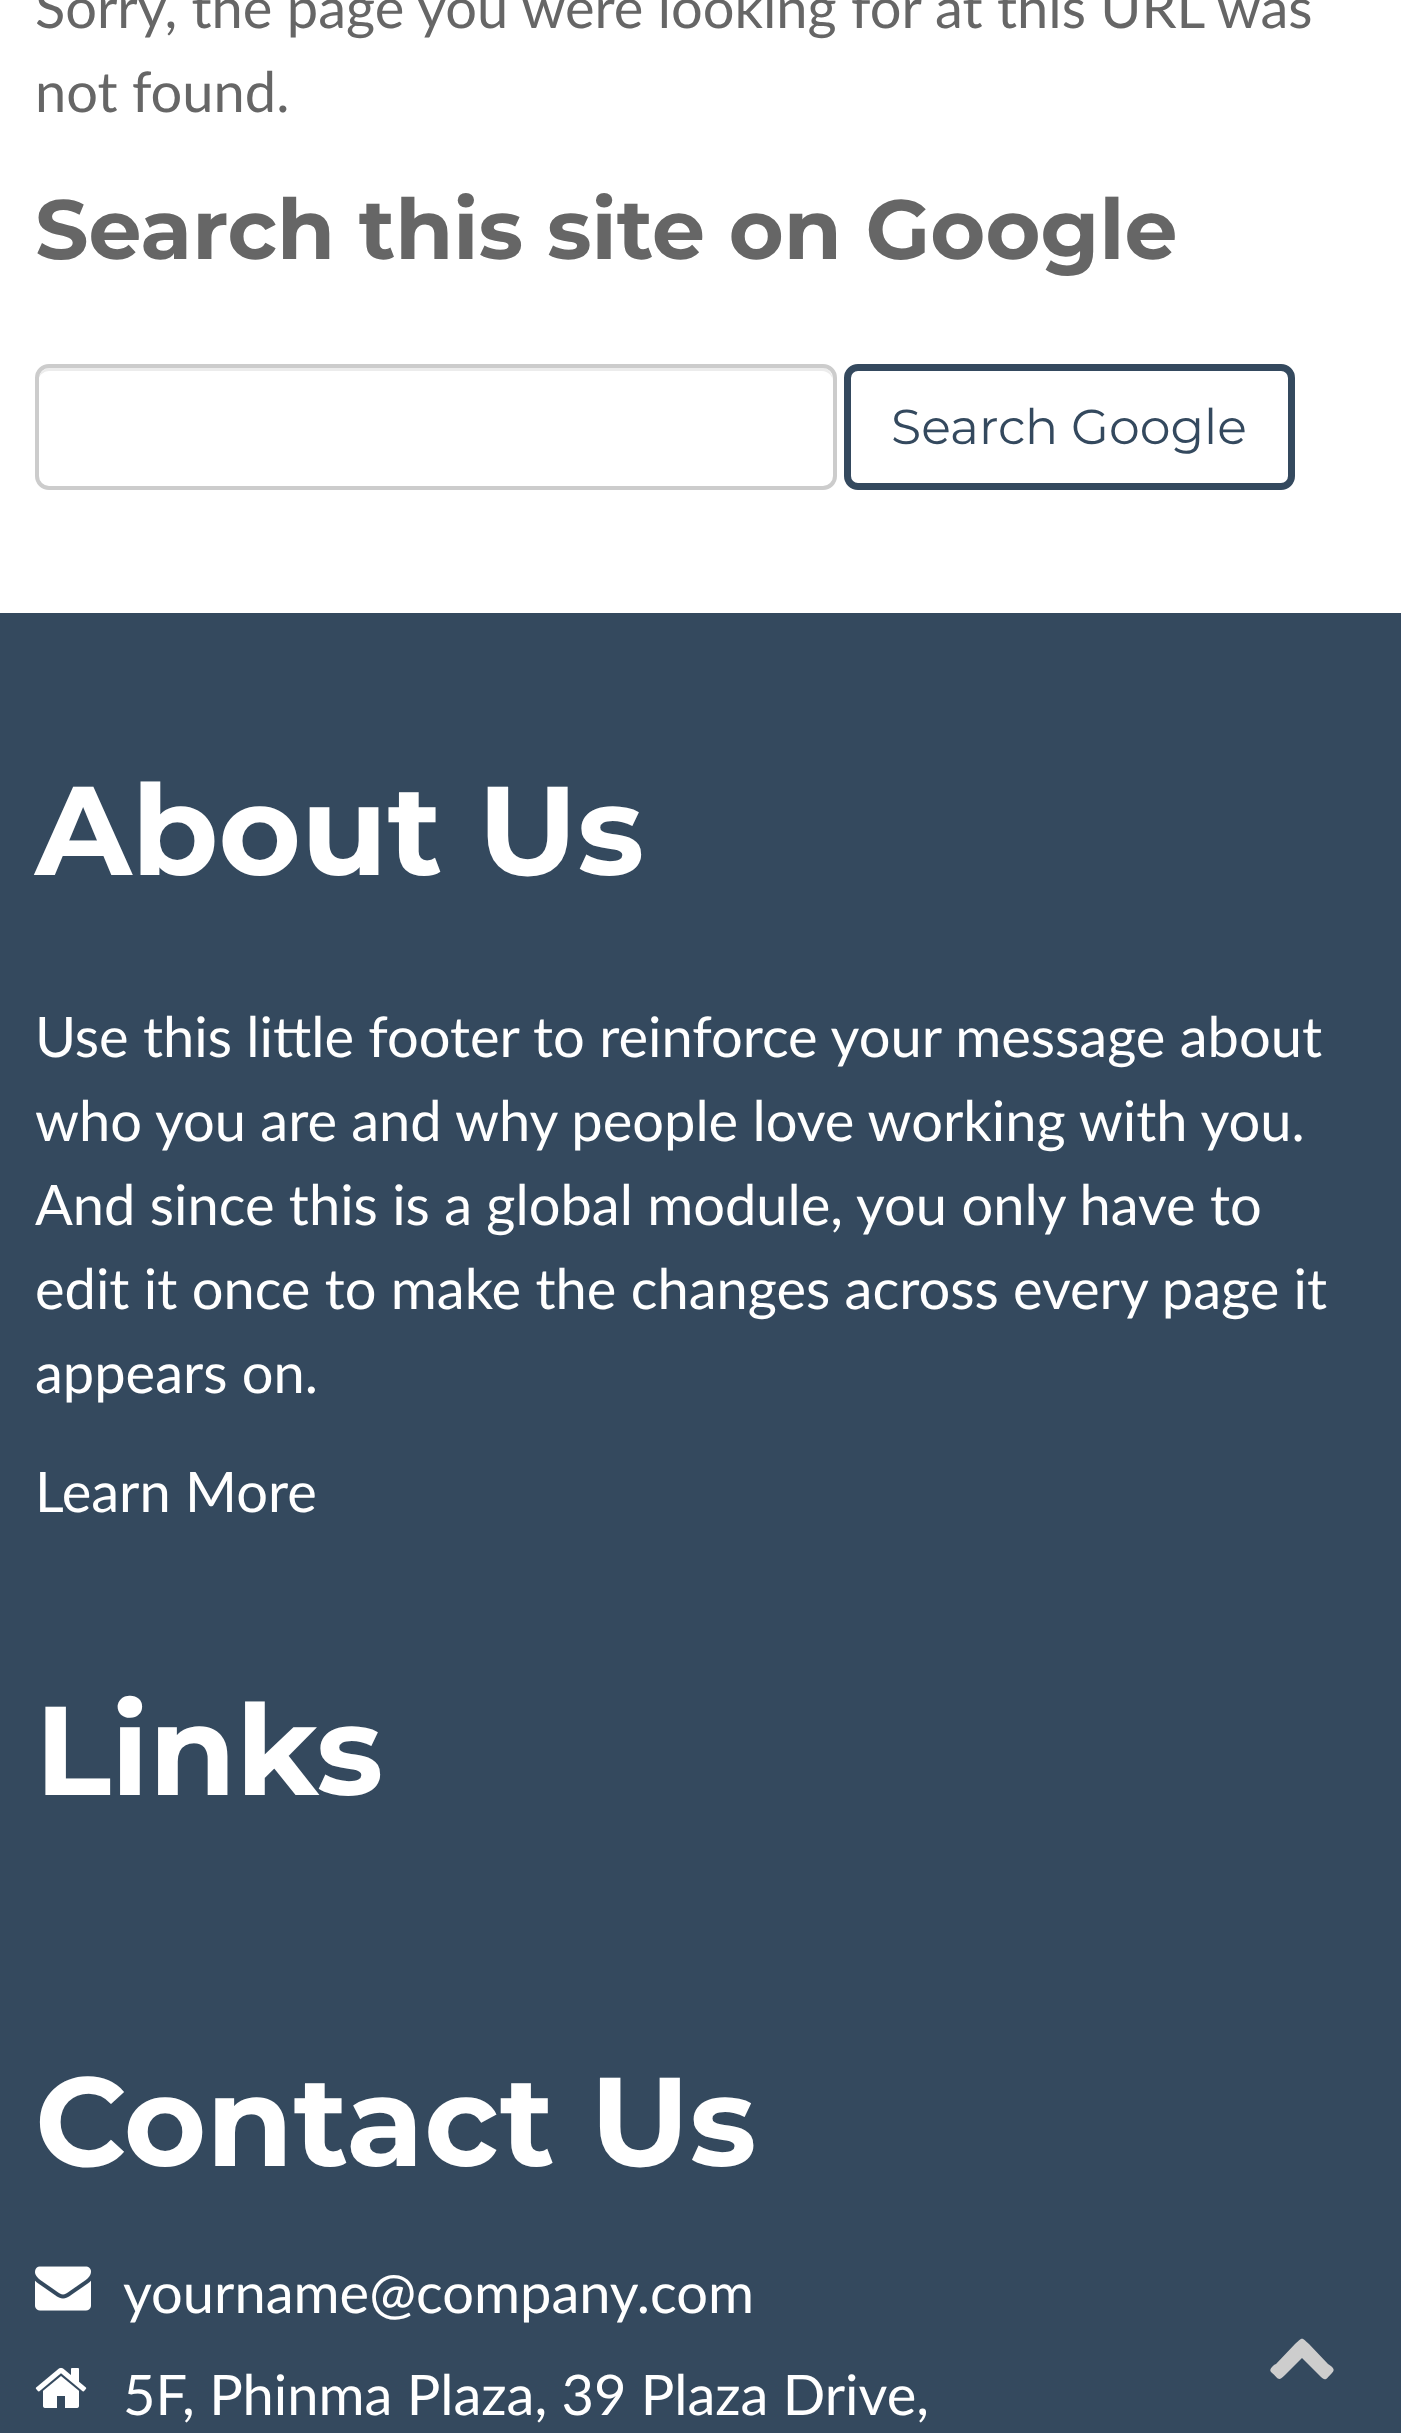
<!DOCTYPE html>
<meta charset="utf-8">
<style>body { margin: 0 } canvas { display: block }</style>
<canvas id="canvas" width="1401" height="2433"></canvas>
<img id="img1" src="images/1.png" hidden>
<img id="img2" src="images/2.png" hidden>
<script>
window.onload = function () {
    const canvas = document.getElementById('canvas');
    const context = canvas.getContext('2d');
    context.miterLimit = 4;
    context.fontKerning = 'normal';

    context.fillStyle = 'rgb(255, 255, 255)';
    context.fillRect(0, 0, 1401, 2433);
    context.fillStyle = 'rgb(236, 236, 236)';
    context.beginPath();
    context.moveTo(49, 371);
    context.lineTo(822, 371);
    context.bezierCurveTo(828, 371, 833, 376, 833, 382);
    context.bezierCurveTo(833, 375, 830, 368, 822, 368);
    context.lineTo(50, 368);
    context.bezierCurveTo(45, 368, 40, 372, 39, 377);
    context.bezierCurveTo(41, 374, 45, 371, 49, 371);
    context.closePath();
    context.fill();
    context.beginPath();
    context.roundRect(37, 366, 798, 122, 12);
    context.strokeStyle = 'rgb(204, 204, 204)';
    context.lineWidth = 4;
    context.stroke();
    context.beginPath();
    context.roundRect(847.5, 367.5, 444, 119, 10.5);
    context.strokeStyle = 'rgb(52, 73, 94)';
    context.lineWidth = 7;
    context.stroke();
    context.fillStyle = 'rgb(52, 73, 94)';
    context.fillRect(0, 613, 1401, 1820);
    context.drawImage(document.getElementById('img1'), 35, 2266, 56, 45);
    context.drawImage(document.getElementById('img2'), 35, 2367, 52, 41);
    context.fillStyle = 'rgb(205, 205, 205)';
    context.beginPath();
    context.moveTo(1271, 2372);
    context.bezierCurveTo(1268, 2369, 1275, 2364, 1276, 2364);
    context.lineTo(1295, 2344);
    context.bezierCurveTo(1303, 2337, 1301, 2337, 1309, 2344);
    context.lineTo(1328, 2364);
    context.bezierCurveTo(1332, 2367, 1336, 2369, 1332, 2373);
    context.bezierCurveTo(1325, 2380, 1326, 2382, 1319, 2375);
    context.lineTo(1302, 2358);
    context.lineTo(1285, 2375);
    context.bezierCurveTo(1278, 2382, 1279, 2379, 1271, 2372);
    context.closePath();
    context.fill();
    context.font = '56px Lato';
    context.fillStyle = 'rgb(102, 102, 102)';
    context.fillText('Sorry, the page you were looking for at this URL was', 35, 28);
    context.fillText('not found.', 35, 112);
    context.font = 'bold 84px Montserrat';
    context.fillText('Search this site on Google', 35, 259);
    context.font = '49px Montserrat';
    context.fillStyle = 'rgb(52, 73, 94)';
    context.fillText('Search Google', 891, 444);
    context.font = 'bold 126px Montserrat';
    context.fillStyle = 'rgb(255, 255, 255)';
    context.fillText('About Us', 35, 875);
    context.font = '56px Lato';
    context.fillText('Use this little footer to reinforce your message about', 35, 1057);
    context.fillText('who you are and why people love working with you.', 35, 1141);
    context.fillText('And since this is a global module, you only have to', 35, 1225);
    context.fillText('edit it once to make the changes across every page it', 35, 1309);
    context.fillText('appears on.', 35, 1393);
    context.fillText('Learn More', 35, 1512);
    context.font = 'bold 126px Montserrat';
    context.fillText('Links', 35, 1795);
    context.fillText('Contact Us', 35, 2166);
    context.font = '56px Lato';
    context.fillText('yourname@company.com', 123, 2313);
    context.fillText('5F, Phinma Plaza, 39 Plaza Drive,', 123, 2415);
};
</script>
